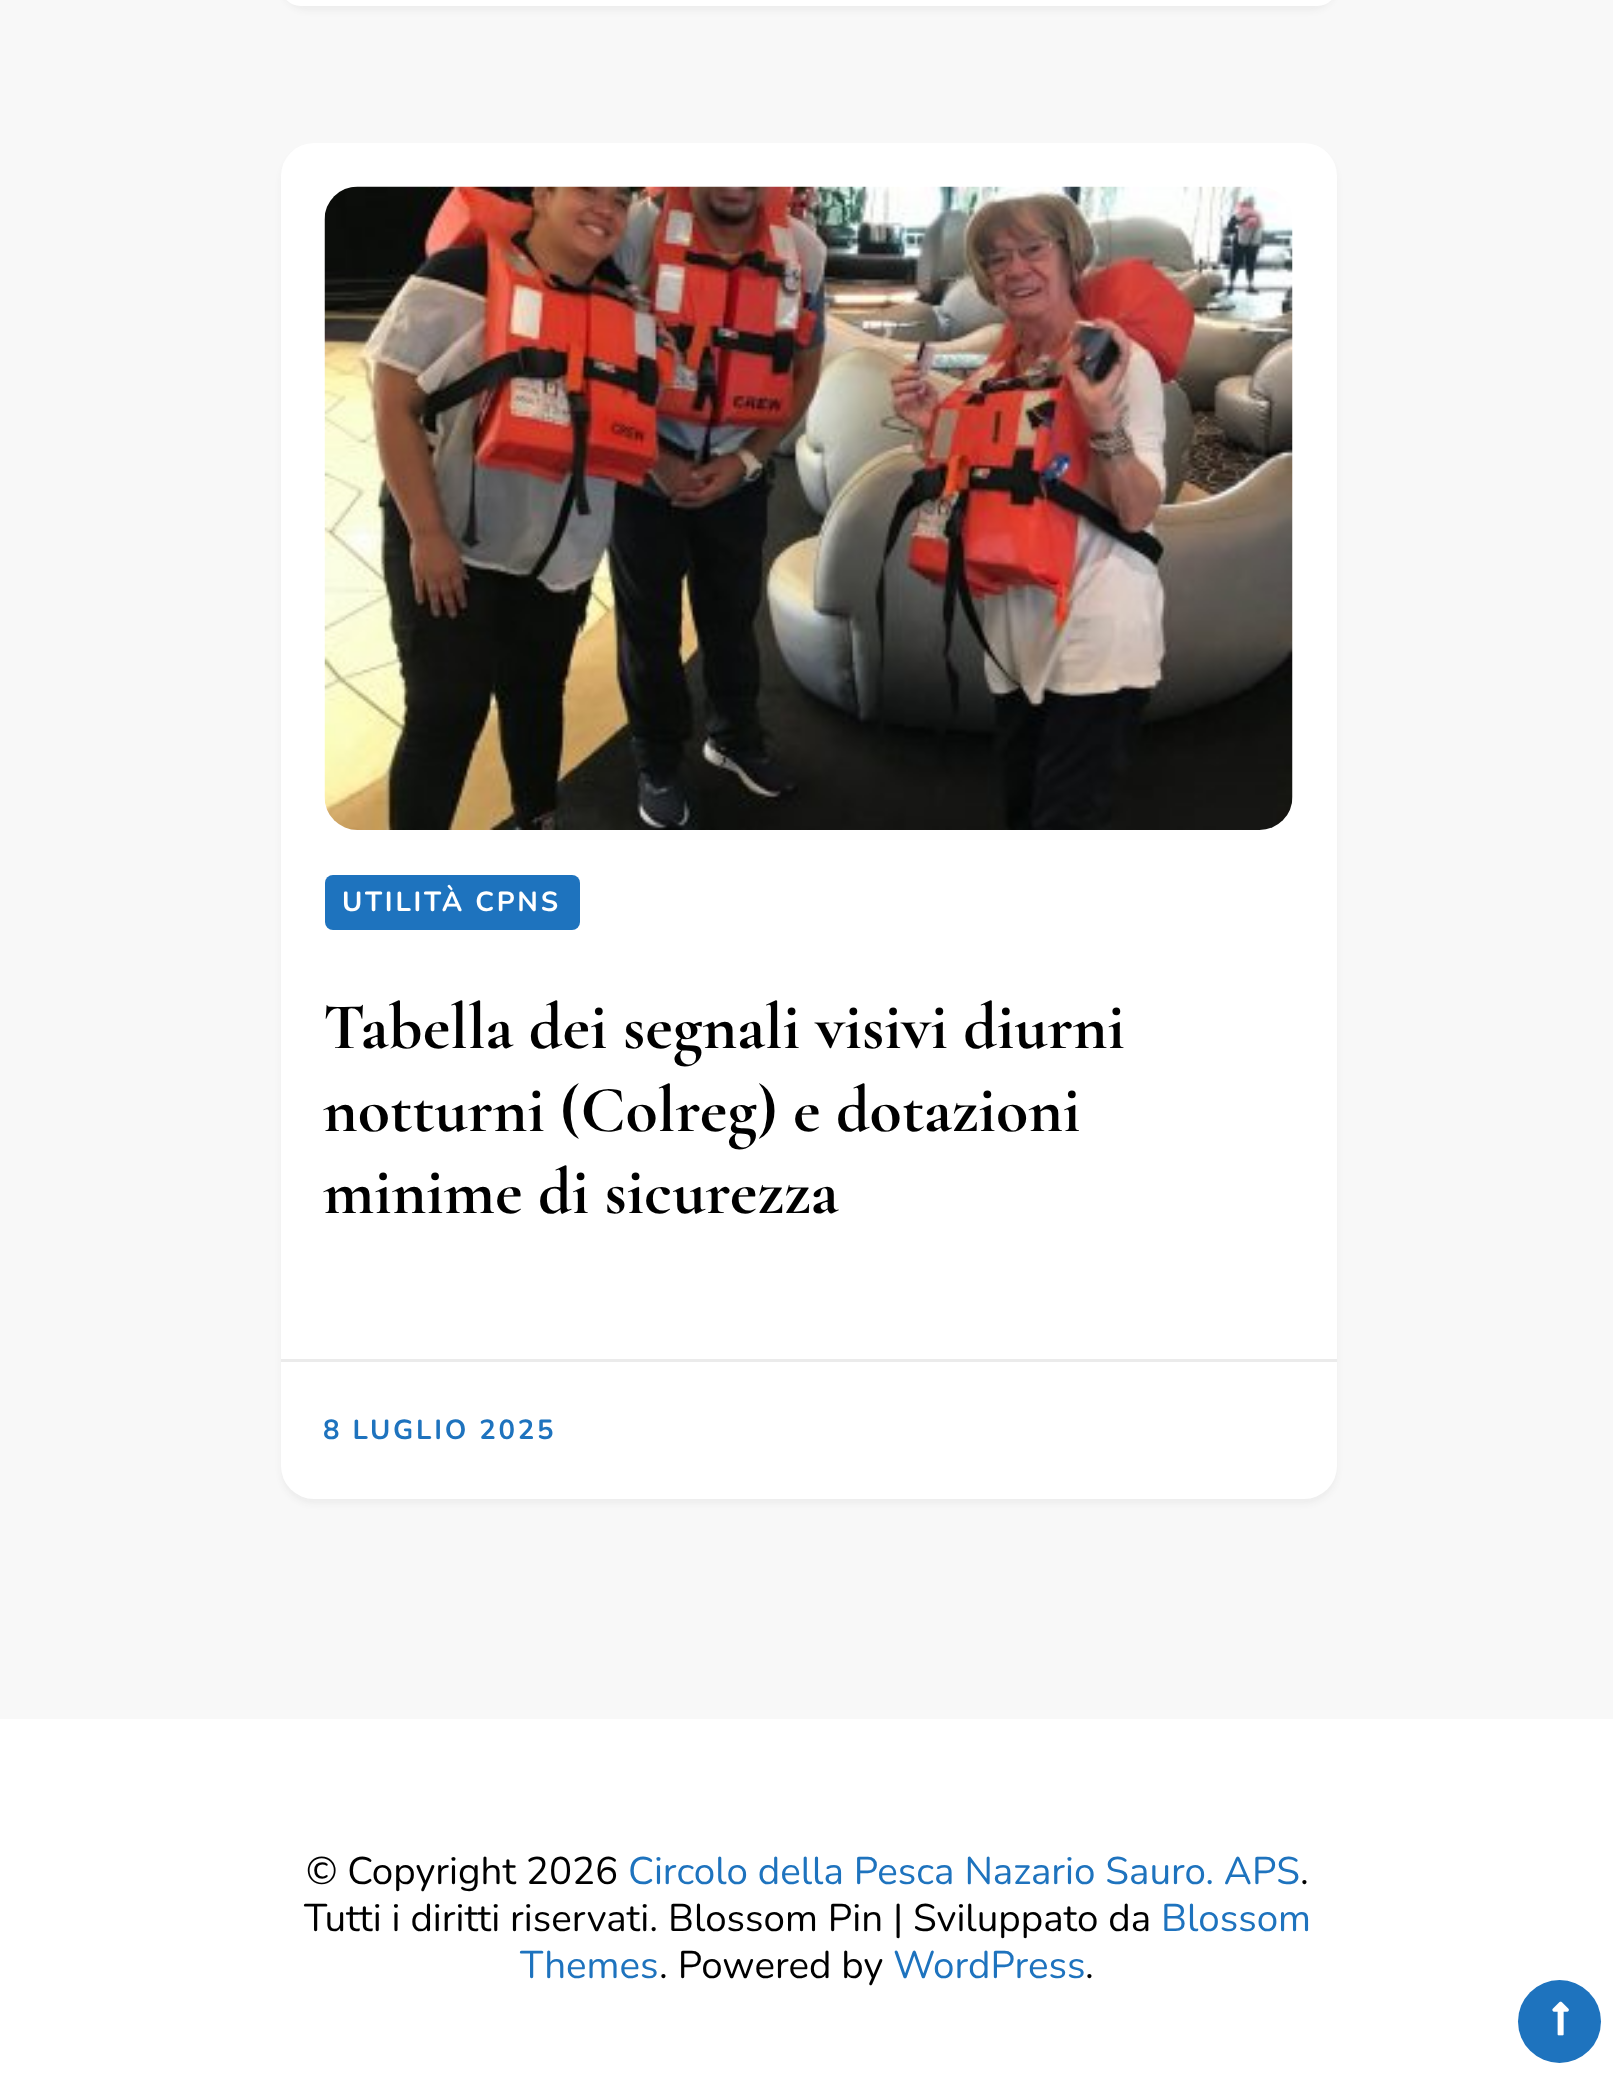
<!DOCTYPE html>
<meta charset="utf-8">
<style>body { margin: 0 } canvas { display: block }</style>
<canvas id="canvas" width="1613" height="2076"></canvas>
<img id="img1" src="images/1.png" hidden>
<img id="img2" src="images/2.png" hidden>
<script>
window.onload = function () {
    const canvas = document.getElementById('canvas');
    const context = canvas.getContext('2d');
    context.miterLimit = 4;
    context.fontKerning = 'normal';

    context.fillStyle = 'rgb(248, 248, 248)';
    context.fillRect(0, 0, 1613, 2076);
    context.fillStyle = 'rgba(45, 45, 45, 0.05)';
    context.filter = 'blur(3px)';
    context.beginPath();
    context.roundRect(281, -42, 1056, 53, 33);
    context.fill();
    context.filter = 'none';
    context.fillStyle = 'rgb(255, 255, 255)';
    context.beginPath();
    context.roundRect(281, -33, 1056, 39, 33);
    context.fill();
    context.fillStyle = 'rgba(45, 45, 45, 0.05)';
    context.filter = 'blur(3px)';
    context.beginPath();
    context.roundRect(281, 149, 1056, 1355, 33);
    context.fill();
    context.filter = 'none';
    context.fillStyle = 'rgb(255, 255, 255)';
    context.beginPath();
    context.roundRect(281, 143, 1056, 1356, 33);
    context.fill();
    context.drawImage(document.getElementById('img1'), 324, 186, 969, 644);
    context.fillStyle = 'rgb(30, 115, 190)';
    context.beginPath();
    context.roundRect(325, 875, 255, 55, 8);
    context.fill();
    context.fillStyle = 'rgb(235, 235, 235)';
    context.fillRect(281, 1359, 1056, 3);
    context.fillStyle = 'rgb(255, 255, 255)';
    context.fillRect(0, 1719, 1613, 357);
    context.fillStyle = 'rgb(30, 115, 190)';
    context.beginPath();
    context.arc(1559.5, 2021.5, 41.5, 0, 2 * Math.PI);
    context.fill();
    context.drawImage(document.getElementById('img2'), 1552, 2001, 17, 35);
    context.letterSpacing = '2.75px';
    context.font = 'bold 27.5px Nunito';
    context.fillStyle = 'rgb(255, 255, 255)';
    context.fillText('UTILITÀ CPNS', 342, 911);
    context.letterSpacing = '0px';
    context.font = 'bold 66px Cormorant Garamond';
    context.fillStyle = 'rgb(0, 0, 0)';
    context.fillText('Tabella dei segnali visivi diurni', 323, 1048);
    context.fillText('notturni (Colreg) e dotazioni', 323, 1131);
    context.fillText('minime di sicurezza', 323, 1213);
    context.letterSpacing = '2.75px';
    context.font = 'bold 27.5px Nunito';
    context.fillStyle = 'rgb(30, 115, 190)';
    context.fillText('8 LUGLIO 2025', 323, 1439);
    context.letterSpacing = '0px';
    context.font = '38.5px Nunito';
    context.fillStyle = 'rgb(0, 0, 0)';
    context.fillText('© Copyright 2026', 306, 1884);
    context.fillStyle = 'rgb(30, 115, 190)';
    context.fillText('Circolo della Pesca Nazario Sauro. APS', 628, 1884);
    context.fillStyle = 'rgb(0, 0, 0)';
    context.fillText('.', 1300, 1884);
    context.fillText('Tutti i diritti riservati. Blossom Pin | Sviluppato da', 304, 1931);
    context.fillStyle = 'rgb(30, 115, 190)';
    context.fillText('Blossom', 1161, 1931);
    context.fillText('Themes', 520, 1978);
    context.fillStyle = 'rgb(0, 0, 0)';
    context.fillText('. Powered by', 659, 1978);
    context.fillStyle = 'rgb(30, 115, 190)';
    context.fillText('WordPress', 893, 1978);
    context.fillStyle = 'rgb(0, 0, 0)';
    context.fillText('.', 1085, 1978);
};
</script>
